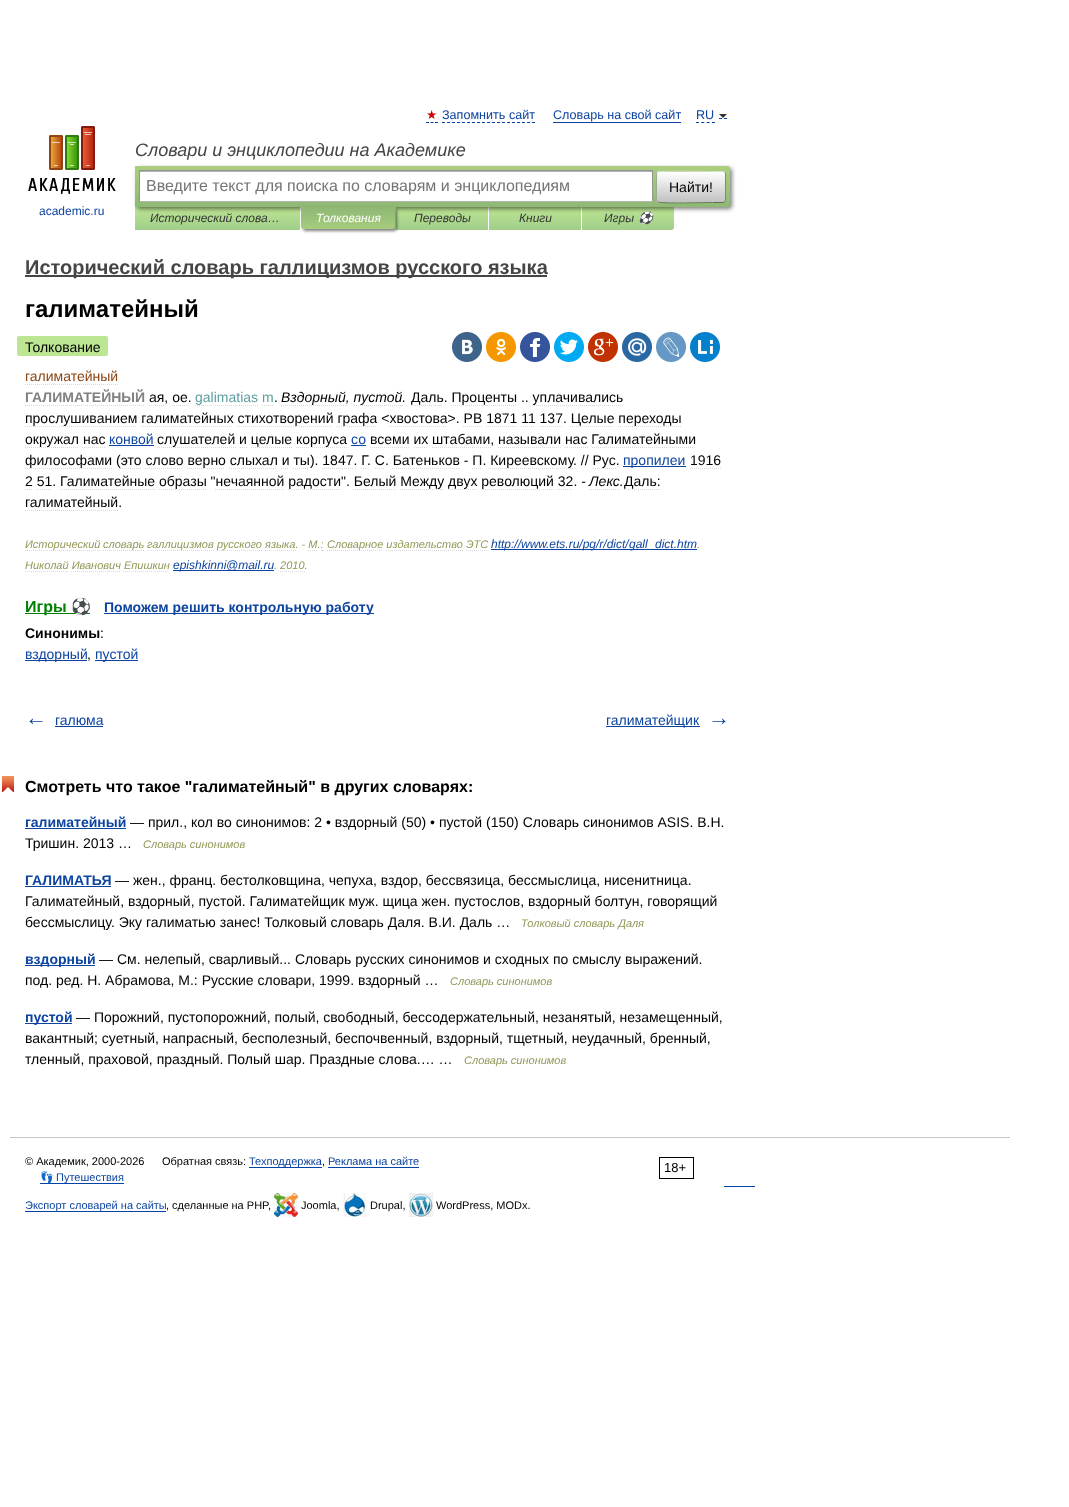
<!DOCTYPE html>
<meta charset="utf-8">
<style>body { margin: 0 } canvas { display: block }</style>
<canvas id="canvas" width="1069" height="1507"></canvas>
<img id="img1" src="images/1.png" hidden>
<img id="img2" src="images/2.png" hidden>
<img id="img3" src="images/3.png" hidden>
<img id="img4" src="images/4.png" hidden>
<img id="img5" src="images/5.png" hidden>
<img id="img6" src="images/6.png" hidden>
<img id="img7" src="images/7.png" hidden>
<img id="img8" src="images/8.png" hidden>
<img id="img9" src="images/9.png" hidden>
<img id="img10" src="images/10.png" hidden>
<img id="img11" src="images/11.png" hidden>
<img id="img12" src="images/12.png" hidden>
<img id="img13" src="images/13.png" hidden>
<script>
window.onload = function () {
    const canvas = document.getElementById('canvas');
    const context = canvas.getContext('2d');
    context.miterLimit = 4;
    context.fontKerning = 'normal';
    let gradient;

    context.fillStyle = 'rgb(255, 255, 255)';
    context.fillRect(0, 0, 1069, 1507);
    context.beginPath();
    context.moveTo(426, 122.5);
    context.lineTo(429, 122.5);
    context.moveTo(430.5, 122.5);
    context.lineTo(433.5, 122.5);
    context.moveTo(435, 122.5);
    context.lineTo(438, 122.5);
    context.strokeStyle = 'rgb(0, 68, 170)';
    context.stroke();
    context.beginPath();
    context.moveTo(442, 122.5);
    context.lineTo(535, 122.5);
    context.setLineDash([3, 2]);
    context.stroke();
    context.fillStyle = 'rgb(13, 68, 160)';
    context.fillRect(553, 122, 128, 1);
    context.beginPath();
    context.moveTo(696, 122.5);
    context.lineTo(715, 122.5);
    context.setLineDash([3, 2.33]);
    context.stroke();
    context.beginPath();
    context.moveTo(719, 118.5);
    context.lineTo(722, 118.5);
    context.moveTo(724, 118.5);
    context.lineTo(727, 118.5);
    context.setLineDash([]);
    context.stroke();
    context.fillStyle = 'rgb(51, 51, 51)';
    context.beginPath();
    context.moveTo(719, 114);
    context.lineTo(727, 114);
    context.lineTo(723, 118);
    context.closePath();
    context.fill();
    gradient = context.createLinearGradient(218, 207, 218, 230);
    gradient.addColorStop(0, 'rgb(189, 230, 147)');
    gradient.addColorStop(1, 'rgb(160, 206, 138)');
    context.fillStyle = gradient;
    context.fillRect(135, 207, 165, 23);
    gradient = context.createLinearGradient(442, 207, 442, 230);
    gradient.addColorStop(0, 'rgb(189, 230, 147)');
    gradient.addColorStop(1, 'rgb(160, 206, 138)');
    context.fillStyle = gradient;
    context.fillRect(396, 207, 92, 23);
    gradient = context.createLinearGradient(535, 207, 535, 230);
    gradient.addColorStop(0, 'rgb(189, 230, 147)');
    gradient.addColorStop(1, 'rgb(160, 206, 138)');
    context.fillStyle = gradient;
    context.fillRect(489, 207, 92, 23);
    gradient = context.createLinearGradient(628, 207, 628, 230);
    gradient.addColorStop(0, 'rgb(189, 230, 147)');
    gradient.addColorStop(1, 'rgb(160, 206, 138)');
    context.fillStyle = gradient;
    context.beginPath();
    context.roundRect(582, 207, 92, 23, [0, 0, 3, 0]);
    context.fill();
    context.fillStyle = 'rgba(0, 0, 0, 0.5)';
    context.filter = 'blur(2px)';
    context.beginPath();
    context.roundRect(137, 168, 595, 41, 3);
    context.fill();
    context.filter = 'none';
    gradient = context.createLinearGradient(433, 166, 433, 207);
    gradient.addColorStop(0, 'rgb(171, 207, 126)');
    gradient.addColorStop(1, 'rgb(142, 184, 116)');
    context.fillStyle = gradient;
    context.beginPath();
    context.roundRect(135, 166, 595, 41, [0, 3, 3, 0]);
    context.fill();
    context.fillStyle = 'rgb(255, 255, 255)';
    context.fillRect(140, 172, 512, 29);
    context.fillStyle = 'rgb(179, 179, 179)';
    context.fillRect(140, 171, 512, 1);
    context.fillStyle = 'rgb(148, 148, 148)';
    context.fillRect(139, 170, 514, 1);
    context.fillRect(652, 170, 1, 32);
    context.fillStyle = 'rgb(180, 180, 180)';
    context.fillRect(139, 201, 514, 1);
    context.fillStyle = 'rgb(148, 148, 148)';
    context.fillRect(139, 170, 1, 32);
    context.save();
    context.beginPath();
    context.roundRect(656, 171, 70, 32, 3);
    context.clip();
    gradient = context.createLinearGradient(691, 142, 691, 172);
    gradient.addColorStop(0, 'rgb(255, 255, 255)');
    gradient.addColorStop(1, 'rgb(193, 193, 193)');
    context.fillStyle = gradient;
    context.fillRect(656, 171, 70, 1);
    gradient = context.createLinearGradient(691, 172, 691, 202);
    gradient.addColorStop(0, 'rgb(255, 255, 255)');
    gradient.addColorStop(1, 'rgb(193, 193, 193)');
    context.fillStyle = gradient;
    context.fillRect(656, 172, 70, 30);
    gradient = context.createLinearGradient(691, 202, 691, 232);
    gradient.addColorStop(0, 'rgb(255, 255, 255)');
    gradient.addColorStop(1, 'rgb(193, 193, 193)');
    context.fillStyle = gradient;
    context.fillRect(656, 202, 70, 1);
    context.restore();
    context.beginPath();
    context.moveTo(657, 172);
    context.lineTo(657.5, 172);
    context.bezierCurveTo(659.5, 170.5, 706, 171.5, 712.5, 171.5);
    context.lineTo(723, 171.5);
    context.lineTo(725, 172);
    context.strokeStyle = 'rgb(209, 228, 188)';
    context.stroke();
    context.beginPath();
    context.moveTo(725, 172);
    context.bezierCurveTo(725, 172.5, 725.5, 173.5, 725.5, 174);
    context.lineTo(725.5, 200);
    context.bezierCurveTo(725.5, 200.5, 725, 201.5, 725, 202);
    context.strokeStyle = 'rgb(122, 142, 105)';
    context.stroke();
    context.beginPath();
    context.moveTo(725, 202);
    context.lineTo(723, 202.5);
    context.lineTo(712.5, 202.5);
    context.bezierCurveTo(706, 202.5, 659.5, 203.5, 657.5, 202);
    context.lineTo(657, 202);
    context.strokeStyle = 'rgb(93, 114, 80)';
    context.stroke();
    context.beginPath();
    context.moveTo(657, 202);
    context.bezierCurveTo(657, 201.5, 656.5, 200.5, 656.5, 200);
    context.lineTo(656.5, 174);
    context.bezierCurveTo(656.5, 173.5, 657, 172.5, 657, 172);
    context.strokeStyle = 'rgb(154, 174, 137)';
    context.stroke();
    context.drawImage(document.getElementById('img1'), 28, 126, 88, 68);
    context.fillStyle = 'rgba(0, 0, 0, 0.5)';
    context.filter = 'blur(1.5px)';
    context.beginPath();
    context.roundRect(303, 209, 94, 22, 3);
    context.fill();
    context.filter = 'none';
    gradient = context.createLinearGradient(348, 207, 348, 229);
    gradient.addColorStop(0, 'rgb(143, 184, 117)');
    gradient.addColorStop(1, 'rgb(167, 204, 125)');
    context.fillStyle = gradient;
    context.beginPath();
    context.roundRect(301, 207, 94, 22, [0, 0, 3, 3]);
    context.fill();
    context.fillStyle = 'rgb(69, 69, 69)';
    context.fillRect(25, 275, 522, 2);
    context.fillStyle = 'rgb(189, 230, 147)';
    context.beginPath();
    context.roundRect(17, 336, 8, 20, [2, 0, 0, 2]);
    context.fill();
    context.beginPath();
    context.roundRect(25, 336, 83, 20, [0, 2, 2, 0]);
    context.fill();
    context.drawImage(document.getElementById('img2'), 452, 332, 30, 30);
    context.drawImage(document.getElementById('img3'), 486, 332, 30, 30);
    context.drawImage(document.getElementById('img4'), 520, 332, 30, 30);
    context.drawImage(document.getElementById('img5'), 554, 332, 30, 30);
    context.drawImage(document.getElementById('img6'), 588, 332, 30, 30);
    context.drawImage(document.getElementById('img7'), 622, 332, 30, 30);
    context.drawImage(document.getElementById('img8'), 656, 332, 30, 30);
    context.drawImage(document.getElementById('img9'), 690, 332, 30, 30);
    context.beginPath();
    context.moveTo(25, 384.5);
    context.lineTo(118, 384.5);
    context.strokeStyle = 'rgb(217, 217, 217)';
    context.setLineDash([1, 1]);
    context.stroke();
    context.beginPath();
    context.moveTo(25, 405.5);
    context.lineTo(145, 405.5);
    context.stroke();
    context.beginPath();
    context.moveTo(149, 405.5);
    context.lineTo(164, 405.5);
    context.stroke();
    context.beginPath();
    context.moveTo(195, 405.5);
    context.lineTo(258, 405.5);
    context.stroke();
    context.beginPath();
    context.moveTo(262, 405.5);
    context.lineTo(274, 405.5);
    context.stroke();
    context.beginPath();
    context.moveTo(281, 405.5);
    context.lineTo(346, 405.5);
    context.stroke();
    context.beginPath();
    context.moveTo(354, 405.5);
    context.lineTo(403, 405.5);
    context.stroke();
    context.beginPath();
    context.moveTo(411, 405.5);
    context.lineTo(443, 405.5);
    context.stroke();
    context.beginPath();
    context.moveTo(172, 405.5);
    context.lineTo(187, 405.5);
    context.stroke();
    context.beginPath();
    context.moveTo(451, 405.5);
    context.lineTo(517, 405.5);
    context.stroke();
    context.beginPath();
    context.moveTo(532, 405.5);
    context.lineTo(623, 405.5);
    context.stroke();
    context.beginPath();
    context.moveTo(25, 426.5);
    context.lineTo(137, 426.5);
    context.stroke();
    context.beginPath();
    context.moveTo(141, 426.5);
    context.lineTo(233, 426.5);
    context.stroke();
    context.beginPath();
    context.moveTo(237, 426.5);
    context.lineTo(333, 426.5);
    context.stroke();
    context.beginPath();
    context.moveTo(337, 426.5);
    context.lineTo(377, 426.5);
    context.stroke();
    context.beginPath();
    context.moveTo(389, 426.5);
    context.lineTo(447, 426.5);
    context.stroke();
    context.beginPath();
    context.moveTo(463, 426.5);
    context.lineTo(482, 426.5);
    context.moveTo(486, 426.5);
    context.lineTo(517, 426.5);
    context.stroke();
    context.beginPath();
    context.moveTo(521, 426.5);
    context.lineTo(535, 426.5);
    context.moveTo(539, 426.5);
    context.lineTo(563, 426.5);
    context.stroke();
    context.beginPath();
    context.moveTo(570, 426.5);
    context.lineTo(614, 426.5);
    context.stroke();
    context.beginPath();
    context.moveTo(618, 426.5);
    context.lineTo(681, 426.5);
    context.stroke();
    context.beginPath();
    context.moveTo(25, 447.5);
    context.lineTo(79, 447.5);
    context.stroke();
    context.fillStyle = 'rgb(13, 68, 160)';
    context.fillRect(109, 445, 45, 1);
    context.beginPath();
    context.moveTo(157, 447.5);
    context.lineTo(236, 447.5);
    context.stroke();
    context.fillRect(351, 445, 15, 1);
    context.beginPath();
    context.moveTo(370, 447.5);
    context.lineTo(410, 447.5);
    context.stroke();
    context.beginPath();
    context.moveTo(82, 447.5);
    context.lineTo(105, 447.5);
    context.stroke();
    context.beginPath();
    context.moveTo(240, 447.5);
    context.lineTo(241, 447.5);
    context.moveTo(242, 447.5);
    context.lineTo(243, 447.5);
    context.moveTo(244, 447.5);
    context.lineTo(245, 447.5);
    context.moveTo(246, 447.5);
    context.lineTo(247, 447.5);
    context.setLineDash([]);
    context.stroke();
    context.beginPath();
    context.moveTo(251, 447.5);
    context.lineTo(292, 447.5);
    context.setLineDash([1, 1]);
    context.stroke();
    context.beginPath();
    context.moveTo(296, 447.5);
    context.lineTo(347, 447.5);
    context.stroke();
    context.beginPath();
    context.moveTo(414, 447.5);
    context.lineTo(428, 447.5);
    context.stroke();
    context.beginPath();
    context.moveTo(432, 447.5);
    context.lineTo(491, 447.5);
    context.stroke();
    context.beginPath();
    context.moveTo(498, 447.5);
    context.lineTo(561, 447.5);
    context.stroke();
    context.beginPath();
    context.moveTo(565, 447.5);
    context.lineTo(588, 447.5);
    context.stroke();
    context.beginPath();
    context.moveTo(592, 447.5);
    context.lineTo(696, 447.5);
    context.stroke();
    context.beginPath();
    context.moveTo(25, 468.5);
    context.lineTo(112, 468.5);
    context.stroke();
    context.fillRect(623, 466, 63, 1);
    context.beginPath();
    context.moveTo(690, 468.5);
    context.lineTo(721, 468.5);
    context.stroke();
    context.beginPath();
    context.moveTo(120, 468.5);
    context.lineTo(141, 468.5);
    context.moveTo(145, 468.5);
    context.lineTo(183, 468.5);
    context.stroke();
    context.beginPath();
    context.moveTo(187, 468.5);
    context.lineTo(225, 468.5);
    context.stroke();
    context.beginPath();
    context.moveTo(229, 468.5);
    context.lineTo(277, 468.5);
    context.moveTo(281, 468.5);
    context.lineTo(289, 468.5);
    context.stroke();
    context.beginPath();
    context.moveTo(293, 468.5);
    context.lineTo(309, 468.5);
    context.moveTo(322, 468.5);
    context.lineTo(353, 468.5);
    context.stroke();
    context.beginPath();
    context.moveTo(361, 468.5);
    context.lineTo(362, 468.5);
    context.moveTo(363, 468.5);
    context.lineTo(364, 468.5);
    context.moveTo(365, 468.5);
    context.lineTo(366, 468.5);
    context.setLineDash([]);
    context.stroke();
    context.beginPath();
    context.moveTo(375, 468.5);
    context.lineTo(385, 468.5);
    context.setLineDash([1, 1]);
    context.stroke();
    context.beginPath();
    context.moveTo(392, 468.5);
    context.lineTo(460, 468.5);
    context.stroke();
    context.beginPath();
    context.moveTo(472, 468.5);
    context.lineTo(482, 468.5);
    context.stroke();
    context.beginPath();
    context.moveTo(490, 468.5);
    context.lineTo(573, 468.5);
    context.stroke();
    context.beginPath();
    context.moveTo(593, 468.5);
    context.lineTo(616, 468.5);
    context.stroke();
    context.beginPath();
    context.moveTo(25, 489.5);
    context.lineTo(26, 489.5);
    context.moveTo(27, 489.5);
    context.lineTo(28, 489.5);
    context.moveTo(29, 489.5);
    context.lineTo(30, 489.5);
    context.moveTo(31, 489.5);
    context.lineTo(32, 489.5);
    context.setLineDash([]);
    context.stroke();
    context.beginPath();
    context.moveTo(624, 489.5);
    context.lineTo(661, 489.5);
    context.setLineDash([1, 1]);
    context.stroke();
    context.beginPath();
    context.moveTo(36, 489.5);
    context.lineTo(52, 489.5);
    context.stroke();
    context.beginPath();
    context.moveTo(60, 489.5);
    context.lineTo(155, 489.5);
    context.stroke();
    context.beginPath();
    context.moveTo(159, 489.5);
    context.lineTo(206, 489.5);
    context.stroke();
    context.beginPath();
    context.moveTo(215, 489.5);
    context.lineTo(284, 489.5);
    context.stroke();
    context.beginPath();
    context.moveTo(288, 489.5);
    context.lineTo(341, 489.5);
    context.stroke();
    context.beginPath();
    context.moveTo(353, 489.5);
    context.lineTo(396, 489.5);
    context.stroke();
    context.beginPath();
    context.moveTo(400, 489.5);
    context.lineTo(444, 489.5);
    context.stroke();
    context.beginPath();
    context.moveTo(448, 489.5);
    context.lineTo(477, 489.5);
    context.stroke();
    context.beginPath();
    context.moveTo(481, 489.5);
    context.lineTo(554, 489.5);
    context.stroke();
    context.beginPath();
    context.moveTo(557, 489.5);
    context.lineTo(573, 489.5);
    context.moveTo(589, 489.5);
    context.lineTo(620, 489.5);
    context.stroke();
    context.beginPath();
    context.moveTo(25, 510.5);
    context.lineTo(118, 510.5);
    context.stroke();
    context.beginPath();
    context.moveTo(25, 550.5);
    context.lineTo(100, 550.5);
    context.stroke();
    context.beginPath();
    context.moveTo(103, 550.5);
    context.lineTo(144, 550.5);
    context.stroke();
    context.beginPath();
    context.moveTo(147, 550.5);
    context.lineTo(214, 550.5);
    context.stroke();
    context.beginPath();
    context.moveTo(217, 550.5);
    context.lineTo(262, 550.5);
    context.stroke();
    context.beginPath();
    context.moveTo(327, 550.5);
    context.lineTo(383, 550.5);
    context.stroke();
    context.fillRect(491, 549, 30, 1);
    context.fillRect(521, 549, 75, 1);
    context.fillRect(596, 549, 52, 1);
    context.fillRect(648, 549, 49, 1);
    context.beginPath();
    context.moveTo(25, 571.5);
    context.lineTo(68, 571.5);
    context.stroke();
    context.beginPath();
    context.moveTo(71, 571.5);
    context.lineTo(120, 571.5);
    context.stroke();
    context.beginPath();
    context.moveTo(123, 571.5);
    context.lineTo(169, 571.5);
    context.stroke();
    context.fillRect(173, 570, 53, 1);
    context.fillRect(226, 570, 34, 1);
    context.fillRect(260, 570, 14, 1);
    context.beginPath();
    context.moveTo(280, 571.5);
    context.lineTo(305, 571.5);
    context.stroke();
    context.fillStyle = 'rgb(0, 128, 0)';
    context.fillRect(25, 613, 65, 1);
    context.fillStyle = 'rgb(13, 68, 160)';
    context.fillRect(104, 613, 270, 1);
    context.fillRect(25, 660, 62, 1);
    context.fillRect(95, 660, 43, 1);
    context.fillRect(55, 726, 48, 1);
    context.fillRect(606, 726, 94, 1);
    context.drawImage(document.getElementById('img10'), 2, 776, 12, 16);
    context.fillRect(25, 828, 101, 1);
    context.fillRect(25, 886, 86, 1);
    context.fillRect(25, 965, 70, 1);
    context.fillRect(25, 1023, 47, 1);
    context.fillStyle = 'rgb(199, 199, 199)';
    context.fillRect(10, 1137, 1000, 1);
    context.fillStyle = 'rgb(0, 68, 170)';
    context.fillRect(249, 1167, 73, 1);
    context.fillRect(328, 1167, 91, 1);
    context.strokeStyle = 'rgb(0, 0, 0)';
    context.setLineDash([]);
    context.strokeRect(659.5, 1157.5, 34, 21);
    context.fillRect(40, 1183, 84, 1);
    context.fillRect(724, 1186, 31, 1);
    context.fillRect(25, 1211, 141, 1);
    context.drawImage(document.getElementById('img11'), 274, 1193, 24, 24);
    context.drawImage(document.getElementById('img12'), 343, 1193, 24, 24);
    context.drawImage(document.getElementById('img13'), 409, 1193, 24, 24);
    context.font = '12.6px DejaVu Sans';
    context.fillStyle = 'rgb(204, 0, 0)';
    context.fillText('★', 426, 119);
    context.font = '12.6px Liberation Sans';
    context.fillStyle = 'rgb(13, 68, 160)';
    context.fillText('Запомнить сайт', 442, 119);
    context.fillText('Словарь на свой сайт', 553, 119);
    context.fillText('RU', 696, 119);
    context.font = 'italic 18px Liberation Sans';
    context.fillStyle = 'rgb(69, 69, 69)';
    context.fillText('Словари и энциклопедии на Академике', 135, 156);
    context.font = '16px Liberation Sans';
    context.fillStyle = 'rgb(117, 117, 117)';
    context.fillText('Введите текст для поиска по словарям и энциклопедиям', 146, 191);
    context.font = '14px Liberation Sans';
    context.fillStyle = 'rgb(0, 0, 0)';
    context.fillText('Найти!', 669, 192);
    context.font = '12px Liberation Sans';
    context.fillStyle = 'rgb(13, 68, 160)';
    context.fillText('academic.ru', 39, 215);
    context.font = 'italic 12px Liberation Sans';
    context.fillStyle = 'rgb(53, 53, 53)';
    context.fillText('Исторический слова…', 150, 222);
    context.fillStyle = 'rgb(255, 255, 255)';
    context.fillText('Толкования', 316, 222);
    context.fillStyle = 'rgb(53, 53, 53)';
    context.fillText('Переводы', 414, 222);
    context.fillText('Книги', 519, 222);
    context.fillText('Игры', 604, 222);
    context.font = 'italic 12px Noto Color Emoji';
    context.fillText('⚽', 638, 222);
    context.font = 'bold 20px Liberation Sans';
    context.fillStyle = 'rgb(69, 69, 69)';
    context.fillText('Исторический словарь галлицизмов русского языка', 25, 274);
    context.font = 'bold 24px Liberation Sans';
    context.fillStyle = 'rgb(0, 0, 0)';
    context.fillText('галиматейный', 25, 317);
    context.font = '14px Liberation Sans';
    context.fillText('Толкование', 25, 352);
    context.fillStyle = 'rgb(139, 69, 19)';
    context.fillText('галиматейный', 25, 381);
    context.font = 'bold 14px Liberation Sans';
    context.fillStyle = 'rgb(128, 128, 128)';
    context.fillText('ГАЛИМАТЕЙНЫЙ', 25, 402);
    context.font = '14px Liberation Sans';
    context.fillStyle = 'rgb(0, 0, 0)';
    context.fillText('ая, ое.', 149, 402);
    context.fillStyle = 'rgb(95, 158, 160)';
    context.fillText('galimatias m', 195, 402);
    context.fillStyle = 'rgb(0, 0, 0)';
    context.fillText('.', 274, 402);
    context.font = 'italic 14px Liberation Sans';
    context.fillText('Вздорный, пустой.', 281, 402);
    context.font = '14px Liberation Sans';
    context.fillText('Даль. Проценты .. уплачивались', 411, 402);
    context.fillText('прослушиванием галиматейных стихотворений графа <хвостова>. РВ 1871 11 137. Целые переходы', 25, 423);
    context.fillText('окружал нас', 25, 444);
    context.fillStyle = 'rgb(13, 68, 160)';
    context.fillText('конвой', 109, 444);
    context.fillStyle = 'rgb(0, 0, 0)';
    context.fillText('слушателей и целые корпуса', 157, 444);
    context.fillStyle = 'rgb(13, 68, 160)';
    context.fillText('со', 351, 444);
    context.fillStyle = 'rgb(0, 0, 0)';
    context.fillText('всеми их штабами, называли нас Галиматейными', 370, 444);
    context.fillText('философами (это слово верно слыхал и ты). 1847. Г', 25, 465);
    context.fillText('. С. Батеньков - П. Киреевскому', 367, 465);
    context.fillText('. // Рус.', 573, 465);
    context.fillStyle = 'rgb(13, 68, 160)';
    context.fillText('пропилеи', 623, 465);
    context.fillStyle = 'rgb(0, 0, 0)';
    context.fillText('1916', 690, 465);
    context.fillText('2 51. Галиматейные образы "нечаянной радости". Белый Между двух революций 32. -', 25, 486);
    context.font = 'italic 14px Liberation Sans';
    context.fillText('Лекс.', 589, 486);
    context.font = '14px Liberation Sans';
    context.fillText('Даль:', 624, 486);
    context.fillText('галиматейный.', 25, 507);
    context.font = 'italic 11px Liberation Sans';
    context.fillStyle = 'rgb(147, 151, 86)';
    context.fillText('Исторический', 25, 548);
    context.fillText('словарь', 103, 548);
    context.fillText('галлицизмов', 147, 548);
    context.fillText('русского языка. - М.:', 217, 548);
    context.beginPath();
    context.moveTo(265, 550.5);
    context.lineTo(296, 550.5);
    context.moveTo(308, 550.5);
    context.lineTo(318, 550.5);
    context.strokeStyle = 'rgb(217, 217, 217)';
    context.setLineDash([1, 1]);
    context.stroke();
    context.fillStyle = 'rgb(217, 217, 217)';
    context.fillRect(321, 550, 3, 1);
    context.fillStyle = 'rgb(147, 151, 86)';
    context.fillText('Словарное издательство ЭТС', 327, 548);
    context.beginPath();
    context.moveTo(386, 550.5);
    context.lineTo(463, 550.5);
    context.stroke();
    context.beginPath();
    context.moveTo(466, 550.5);
    context.lineTo(488, 550.5);
    context.stroke();
    context.font = 'italic 12px Liberation Sans';
    context.fillStyle = 'rgb(13, 68, 160)';
    context.fillText('http://www', 491, 548);
    context.fillText('.ets.ru/pg/r/dict/', 546, 548);
    context.fillText('gall', 629, 548);
    context.fillText('dict.htm', 655, 548);
    context.font = 'italic 11px Liberation Sans';
    context.fillStyle = 'rgb(147, 151, 86)';
    context.fillText('.', 697, 548);
    context.fillText('Николай Иванович Епишкин', 25, 569);
    context.font = 'italic 12px Liberation Sans';
    context.fillStyle = 'rgb(13, 68, 160)';
    context.fillText('epishkinni', 173, 569);
    context.fillText('@mail.ru', 226, 569);
    context.font = 'italic 11px Liberation Sans';
    context.fillStyle = 'rgb(147, 151, 86)';
    context.fillText('. 2010.', 274, 569);
    context.font = 'bold 16px Liberation Sans';
    context.fillStyle = 'rgb(0, 128, 0)';
    context.fillText('Игры', 25, 612);
    context.font = 'bold 16px Noto Color Emoji';
    context.fillText('⚽', 71, 612);
    context.font = 'bold 14px Liberation Sans';
    context.fillStyle = 'rgb(13, 68, 160)';
    context.fillText('Поможем решить контрольную работу', 104, 612);
    context.fillStyle = 'rgb(0, 0, 0)';
    context.fillText('Синонимы', 25, 638);
    context.font = '14px Liberation Sans';
    context.fillText(':', 100, 638);
    context.fillStyle = 'rgb(13, 68, 160)';
    context.fillText('вздорный', 25, 659);
    context.fillStyle = 'rgb(0, 0, 0)';
    context.fillText(',', 87, 659);
    context.fillStyle = 'rgb(13, 68, 160)';
    context.fillText('пустой', 95, 659);
    context.font = 'bold 22px Liberation Sans';
    context.fillText('←', 25, 725);
    context.font = '14px Liberation Sans';
    context.fillText('галюма', 55, 725);
    context.fillText('галиматейщик', 606, 725);
    context.font = 'bold 22px Liberation Sans';
    context.fillText('→', 708, 725);
    context.font = 'bold 16px Liberation Sans';
    context.fillStyle = 'rgb(0, 0, 0)';
    context.fillText('Смотреть что такое "галиматейный" в других словарях:', 25, 792);
    context.font = 'bold 14px Liberation Sans';
    context.fillStyle = 'rgb(13, 68, 160)';
    context.fillText('галиматейный', 25, 827);
    context.font = '14px Liberation Sans';
    context.fillStyle = 'rgb(0, 0, 0)';
    context.fillText('— прил., кол во синонимов: 2 • вздорный (50) • пустой (150) Словарь синонимов ASIS. В.Н.', 130, 827);
    context.fillText('Тришин. 2013 …', 25, 848);
    context.font = 'italic 11px Liberation Sans';
    context.fillStyle = 'rgb(147, 151, 86)';
    context.fillText('Словарь синонимов', 143, 848);
    context.font = 'bold 14px Liberation Sans';
    context.fillStyle = 'rgb(13, 68, 160)';
    context.fillText('ГАЛИМАТЬЯ', 25, 885);
    context.font = '14px Liberation Sans';
    context.fillStyle = 'rgb(0, 0, 0)';
    context.fillText('— жен., франц. бестолковщина, чепуха, вздор, бессвязица, бессмыслица, нисенитница.', 115, 885);
    context.fillText('Галиматейный, вздорный, пустой. Галиматейщик муж. щица жен. пустослов, вздорный болтун, говорящий', 25, 906);
    context.fillText('бессмыслицу. Эку галиматью занес! Толковый словарь Даля. В.И. Даль …', 25, 927);
    context.font = 'italic 11px Liberation Sans';
    context.fillStyle = 'rgb(147, 151, 86)';
    context.fillText('Толковый словарь Даля', 521, 927);
    context.font = 'bold 14px Liberation Sans';
    context.fillStyle = 'rgb(13, 68, 160)';
    context.fillText('вздорный', 25, 964);
    context.font = '14px Liberation Sans';
    context.fillStyle = 'rgb(0, 0, 0)';
    context.fillText('— См. нелепый, сварливый... Словарь русских синонимов и сходных по смыслу выражений.', 99, 964);
    context.fillText('под. ред. Н. Абрамова, М.: Русские словари, 1999. вздорный …', 25, 985);
    context.font = 'italic 11px Liberation Sans';
    context.fillStyle = 'rgb(147, 151, 86)';
    context.fillText('Словарь синонимов', 450, 985);
    context.font = 'bold 14px Liberation Sans';
    context.fillStyle = 'rgb(13, 68, 160)';
    context.fillText('пустой', 25, 1022);
    context.font = '14px Liberation Sans';
    context.fillStyle = 'rgb(0, 0, 0)';
    context.fillText('— Порожний, пустопорожний, полый, свободный, бессодержательный, незанятый, незамещенный,', 76, 1022);
    context.fillText('вакантный; суетный, напрасный, бесполезный, беспочвенный, вздорный, тщетный, неудачный, бренный,', 25, 1043);
    context.fillText('тленный, праховой, праздный. Полый шар. Праздные слова.… …', 25, 1064);
    context.font = 'italic 11px Liberation Sans';
    context.fillStyle = 'rgb(147, 151, 86)';
    context.fillText('Словарь синонимов', 464, 1064);
    context.font = '11px Liberation Sans';
    context.fillStyle = 'rgb(0, 0, 0)';
    context.fillText('© Академик, 2000-2026', 25, 1165);
    context.fillText('Обратная связь:', 162, 1165);
    context.fillStyle = 'rgb(13, 68, 160)';
    context.fillText('Техподдержка', 249, 1165);
    context.fillStyle = 'rgb(0, 0, 0)';
    context.fillText(',', 322, 1165);
    context.fillStyle = 'rgb(13, 68, 160)';
    context.fillText('Реклама на сайте', 328, 1165);
    context.font = '13px Liberation Sans';
    context.fillStyle = 'rgb(0, 0, 0)';
    context.fillText('18+', 664, 1172);
    context.font = '11px Noto Color Emoji';
    context.fillStyle = 'rgb(13, 68, 160)';
    context.fillText('👣', 40, 1181);
    context.font = '11px Liberation Sans';
    context.fillText('Путешествия', 56, 1181);
    context.fillText('Экспорт словарей на сайты', 25, 1209);
    context.fillStyle = 'rgb(0, 0, 0)';
    context.fillText(', сделанные на PHP,', 166, 1209);
    context.fillText('Joomla,', 301, 1209);
    context.fillText('Drupal,', 370, 1209);
    context.fillText('WordPress, MODx.', 436, 1209);
};
</script>
